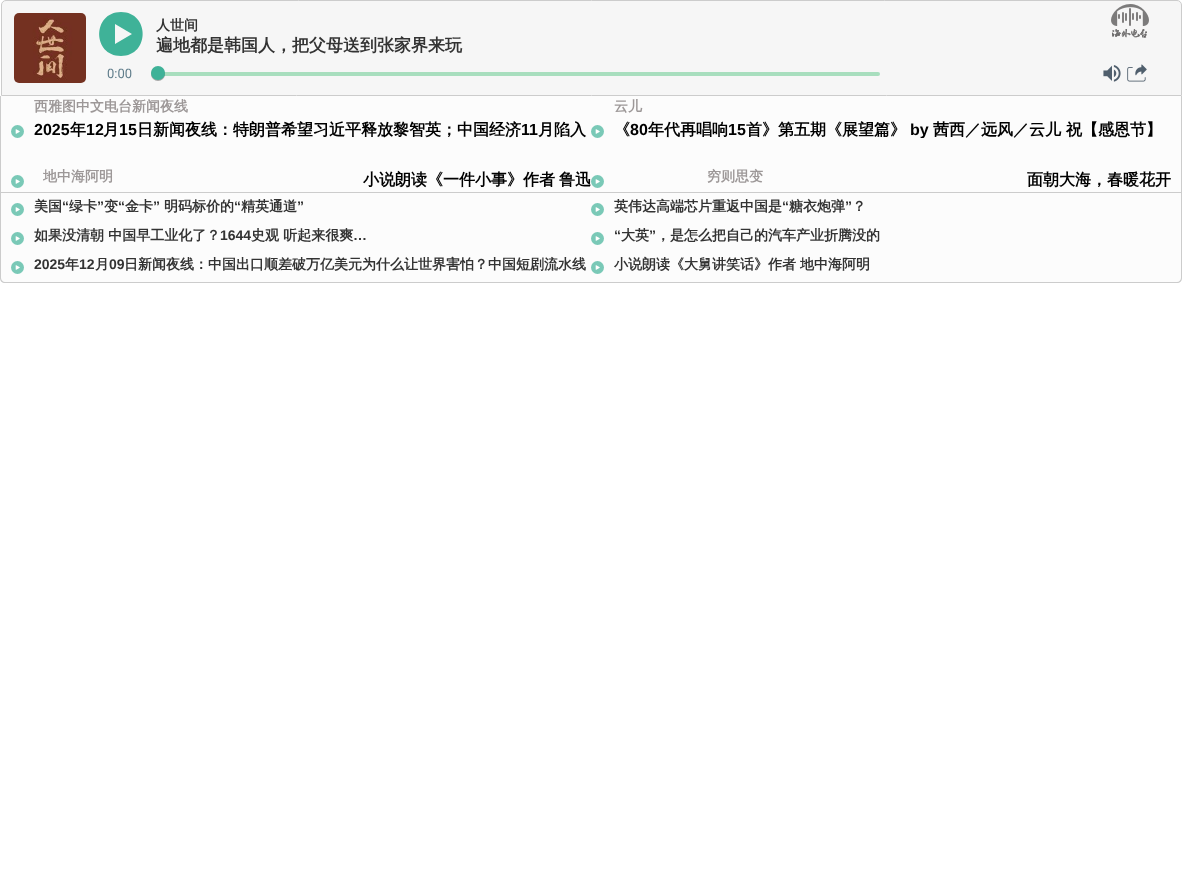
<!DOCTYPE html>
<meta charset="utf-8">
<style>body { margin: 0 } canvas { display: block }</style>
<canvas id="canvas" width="1182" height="893"></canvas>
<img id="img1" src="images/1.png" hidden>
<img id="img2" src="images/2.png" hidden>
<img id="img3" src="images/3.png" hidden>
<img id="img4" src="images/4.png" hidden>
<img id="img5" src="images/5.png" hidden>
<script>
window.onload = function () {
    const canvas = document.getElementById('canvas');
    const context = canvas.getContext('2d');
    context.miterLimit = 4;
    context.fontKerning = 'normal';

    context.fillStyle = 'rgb(255, 255, 255)';
    context.fillRect(0, 0, 1182, 893);
    context.fillStyle = 'rgb(246, 246, 246)';
    context.beginPath();
    context.roundRect(1.5, 0.5, 1180, 95, [4.5, 4.5, 0, 0]);
    context.fill();
    context.strokeStyle = 'rgb(204, 204, 204)';
    context.stroke();
    context.drawImage(document.getElementById('img1'), 14, 13, 72, 70);
    context.fillStyle = 'rgb(63, 178, 152)';
    context.beginPath();
    context.moveTo(121, 12);
    context.bezierCurveTo(92, 12, 92, 56, 121, 56);
    context.bezierCurveTo(150, 56, 150, 12, 121, 12);
    context.closePath();
    context.moveTo(115, 44);
    context.lineTo(115, 24);
    context.lineTo(132, 34);
    context.closePath();
    context.fill();
    context.drawImage(document.getElementById('img2'), 1111, 4, 38, 34);
    context.fillStyle = 'rgb(168, 222, 190)';
    context.beginPath();
    context.roundRect(154, 72, 726, 4, 2);
    context.fill();
    context.fillStyle = 'rgba(0, 0, 0, 0.32)';
    context.filter = 'blur(0.5px)';
    context.beginPath();
    context.roundRect(151, 67, 14, 14, 7);
    context.fill();
    context.filter = 'none';
    context.fillStyle = 'rgb(63, 178, 152)';
    context.beginPath();
    context.arc(158, 73, 7, 0, 2 * Math.PI);
    context.fill();
    context.drawImage(document.getElementById('img3'), 1103, 65, 18, 17);
    context.drawImage(document.getElementById('img4'), 1127, 64, 20, 18);
    context.fillStyle = 'rgb(252, 252, 252)';
    context.fillRect(1, 96, 1180, 96);
    context.fillStyle = 'rgb(204, 204, 204)';
    context.fillRect(1181, 96, 1, 97);
    context.fillRect(0, 192, 1182, 1);
    context.fillRect(0, 96, 1, 97);
    context.fillStyle = 'rgb(122, 201, 183)';
    context.beginPath();
    context.arc(17.5, 131.5, 6.5, 0, 2 * Math.PI);
    context.fill();
    context.drawImage(document.getElementById('img5'), 15, 129, 5, 5);
    context.beginPath();
    context.arc(597.5, 131.5, 6.5, 0, 2 * Math.PI);
    context.fill();
    context.drawImage(document.getElementById('img5'), 595, 129, 5, 5);
    context.beginPath();
    context.arc(17.5, 181.5, 6.5, 0, 2 * Math.PI);
    context.fill();
    context.drawImage(document.getElementById('img5'), 15, 179, 5, 5);
    context.beginPath();
    context.arc(597.5, 181.5, 6.5, 0, 2 * Math.PI);
    context.fill();
    context.drawImage(document.getElementById('img5'), 595, 179, 5, 5);
    context.fillStyle = 'rgb(252, 252, 252)';
    context.beginPath();
    context.roundRect(0, 193, 1182, 90, [0, 0, 5, 5]);
    context.fill();
    context.fillStyle = 'rgb(204, 204, 204)';
    context.beginPath();
    context.moveTo(0, 193);
    context.lineTo(1182, 193);
    context.lineTo(1182, 278);
    context.bezierCurveTo(1182, 281, 1180, 283, 1177, 283);
    context.lineTo(5, 283);
    context.bezierCurveTo(2, 283, 0, 281, 0, 278);
    context.closePath();
    context.moveTo(1, 193);
    context.lineTo(1181, 193);
    context.lineTo(1181, 278);
    context.bezierCurveTo(1181, 280, 1179, 282, 1177, 282);
    context.lineTo(5, 282);
    context.bezierCurveTo(3, 282, 1, 280, 1, 278);
    context.closePath();
    context.fill('evenodd');
    context.fillStyle = 'rgb(122, 201, 183)';
    context.beginPath();
    context.arc(17.5, 209.5, 6.5, 0, 2 * Math.PI);
    context.fill();
    context.drawImage(document.getElementById('img5'), 15, 207, 5, 5);
    context.beginPath();
    context.arc(597.5, 209.5, 6.5, 0, 2 * Math.PI);
    context.fill();
    context.drawImage(document.getElementById('img5'), 595, 207, 5, 5);
    context.beginPath();
    context.arc(17.5, 238.5, 6.5, 0, 2 * Math.PI);
    context.fill();
    context.drawImage(document.getElementById('img5'), 15, 236, 5, 5);
    context.beginPath();
    context.arc(597.5, 238.5, 6.5, 0, 2 * Math.PI);
    context.fill();
    context.drawImage(document.getElementById('img5'), 595, 236, 5, 5);
    context.beginPath();
    context.arc(17.5, 267.5, 6.5, 0, 2 * Math.PI);
    context.fill();
    context.drawImage(document.getElementById('img5'), 15, 265, 5, 5);
    context.beginPath();
    context.arc(597.5, 267.5, 6.5, 0, 2 * Math.PI);
    context.fill();
    context.drawImage(document.getElementById('img5'), 595, 265, 5, 5);
    context.font = 'bold 14px WenQuanYi Zen Hei';
    context.fillStyle = 'rgb(51, 51, 51)';
    context.fillText('人世间', 156, 30);
    context.font = 'bold 17px WenQuanYi Zen Hei';
    context.fillText('遍地都是韩国人，把父母送到张家界来玩', 156, 51);
    context.font = '13px Roboto';
    context.fillStyle = 'rgb(96, 125, 139)';
    context.fillText('0:00', 107, 78);
    context.font = 'bold 14px WenQuanYi Zen Hei';
    context.fillStyle = 'rgb(157, 152, 152)';
    context.fillText('西雅图中文电台新闻夜线', 34, 111);
    context.font = 'bold 16px Liberation Sans';
    context.fillStyle = 'rgb(0, 0, 0)';
    context.fillText('2025', 34, 135);
    context.font = 'bold 16px WenQuanYi Zen Hei';
    context.fillText('年', 70, 135);
    context.font = 'bold 16px Liberation Sans';
    context.fillText('12', 86, 135);
    context.font = 'bold 16px WenQuanYi Zen Hei';
    context.fillText('月', 103, 135);
    context.font = 'bold 16px Liberation Sans';
    context.fillText('15', 119, 135);
    context.font = 'bold 16px WenQuanYi Zen Hei';
    context.fillText('日新闻夜线：特朗普希望习近平释放黎智英；中国经济', 137, 135);
    context.font = 'bold 16px Liberation Sans';
    context.fillText('11', 521, 135);
    context.font = 'bold 16px WenQuanYi Zen Hei';
    context.fillText('月陷入', 538, 135);
    context.font = 'bold 14px WenQuanYi Zen Hei';
    context.fillStyle = 'rgb(157, 152, 152)';
    context.fillText('云儿', 614, 111);
    context.font = 'bold 16px WenQuanYi Zen Hei';
    context.fillStyle = 'rgb(0, 0, 0)';
    context.fillText('《', 614, 135);
    context.font = 'bold 16px Liberation Sans';
    context.fillText('80', 630, 135);
    context.font = 'bold 16px WenQuanYi Zen Hei';
    context.fillText('年代再唱响', 648, 135);
    context.font = 'bold 16px Liberation Sans';
    context.fillText('15', 728, 135);
    context.font = 'bold 16px WenQuanYi Zen Hei';
    context.fillText('首》第五期《展望篇》', 746, 135);
    context.save();
    context.beginPath();
    context.rect(614, 118, 557, 20);
    context.clip();
    context.font = 'bold 16px Liberation Sans';
    context.fillText('by', 910, 135);
    context.restore();
    context.fillText('茜西／远风／云儿', 933, 135);
    context.fillText('祝【感恩节】', 1066, 135);
    context.save();
    context.beginPath();
    context.rect(43, 168, 320, 20);
    context.clip();
    context.font = 'bold 14px WenQuanYi Zen Hei';
    context.fillStyle = 'rgb(157, 152, 152)';
    context.fillText('地中海阿明', 43, 181);
    context.restore();
    context.fillText('小说朗读《一件小事》作者', 363, 185);
    context.fillText('鲁迅', 559, 185);
    context.font = 'bold 14px WenQuanYi Zen Hei';
    context.fillStyle = 'rgb(157, 152, 152)';
    context.fillText('穷则思变', 707, 181);
    context.font = 'bold 16px WenQuanYi Zen Hei';
    context.fillStyle = 'rgb(0, 0, 0)';
    context.fillText('面朝大海，春暖花开', 1027, 185);
    context.font = 'bold 14px WenQuanYi Zen Hei';
    context.fillStyle = 'rgb(51, 51, 51)';
    context.fillText('美国', 34, 211);
    context.font = 'bold 14px Liberation Sans';
    context.fillText('“', 62, 211);
    context.font = 'bold 14px WenQuanYi Zen Hei';
    context.fillText('绿卡', 69, 211);
    context.font = 'bold 14px Liberation Sans';
    context.fillText('”', 97, 211);
    context.font = 'bold 14px WenQuanYi Zen Hei';
    context.fillText('变', 104, 211);
    context.font = 'bold 14px Liberation Sans';
    context.fillText('“', 118, 211);
    context.font = 'bold 14px WenQuanYi Zen Hei';
    context.fillText('金卡', 125, 211);
    context.font = 'bold 14px Liberation Sans';
    context.fillText('”', 153, 211);
    context.font = 'bold 14px WenQuanYi Zen Hei';
    context.fillText('明码标价的', 164, 211);
    context.font = 'bold 14px Liberation Sans';
    context.fillText('“', 234, 211);
    context.font = 'bold 14px WenQuanYi Zen Hei';
    context.fillText('精英通道', 241, 211);
    context.font = 'bold 14px Liberation Sans';
    context.fillText('”', 297, 211);
    context.font = 'bold 14px WenQuanYi Zen Hei';
    context.fillText('英伟达高端芯片重返中国是', 614, 211);
    context.font = 'bold 14px Liberation Sans';
    context.fillText('“', 782, 211);
    context.font = 'bold 14px WenQuanYi Zen Hei';
    context.fillText('糖衣炮弹', 789, 211);
    context.font = 'bold 14px Liberation Sans';
    context.fillText('”', 845, 211);
    context.font = 'bold 14px WenQuanYi Zen Hei';
    context.fillText('？', 852, 211);
    context.fillText('如果没清朝 中国早工业化了？', 34, 240);
    context.font = 'bold 14px Liberation Sans';
    context.fillText('1644', 220, 240);
    context.font = 'bold 14px WenQuanYi Zen Hei';
    context.fillText('史观 听起来很爽', 251, 240);
    context.font = 'bold 14px Liberation Sans';
    context.fillText('…', 353, 240);
    context.fillText('“', 614, 240);
    context.font = 'bold 14px WenQuanYi Zen Hei';
    context.fillText('大英', 621, 240);
    context.font = 'bold 14px Liberation Sans';
    context.fillText('”', 649, 240);
    context.font = 'bold 14px WenQuanYi Zen Hei';
    context.fillText('，是怎么把自己的汽车产业折腾没的', 656, 240);
    context.font = 'bold 14px Liberation Sans';
    context.fillText('2025', 34, 269);
    context.font = 'bold 14px WenQuanYi Zen Hei';
    context.fillText('年', 65, 269);
    context.font = 'bold 14px Liberation Sans';
    context.fillText('12', 79, 269);
    context.font = 'bold 14px WenQuanYi Zen Hei';
    context.fillText('月', 95, 269);
    context.font = 'bold 14px Liberation Sans';
    context.fillText('09', 109, 269);
    context.font = 'bold 14px WenQuanYi Zen Hei';
    context.fillText('日新闻夜线：中国出口顺差破万亿美元为什么让世界害怕？中国短剧流水线', 124, 269);
    context.fillText('小说朗读《大舅讲笑话》作者', 614, 269);
    context.fillText('地中海阿明', 800, 269);
};
</script>
